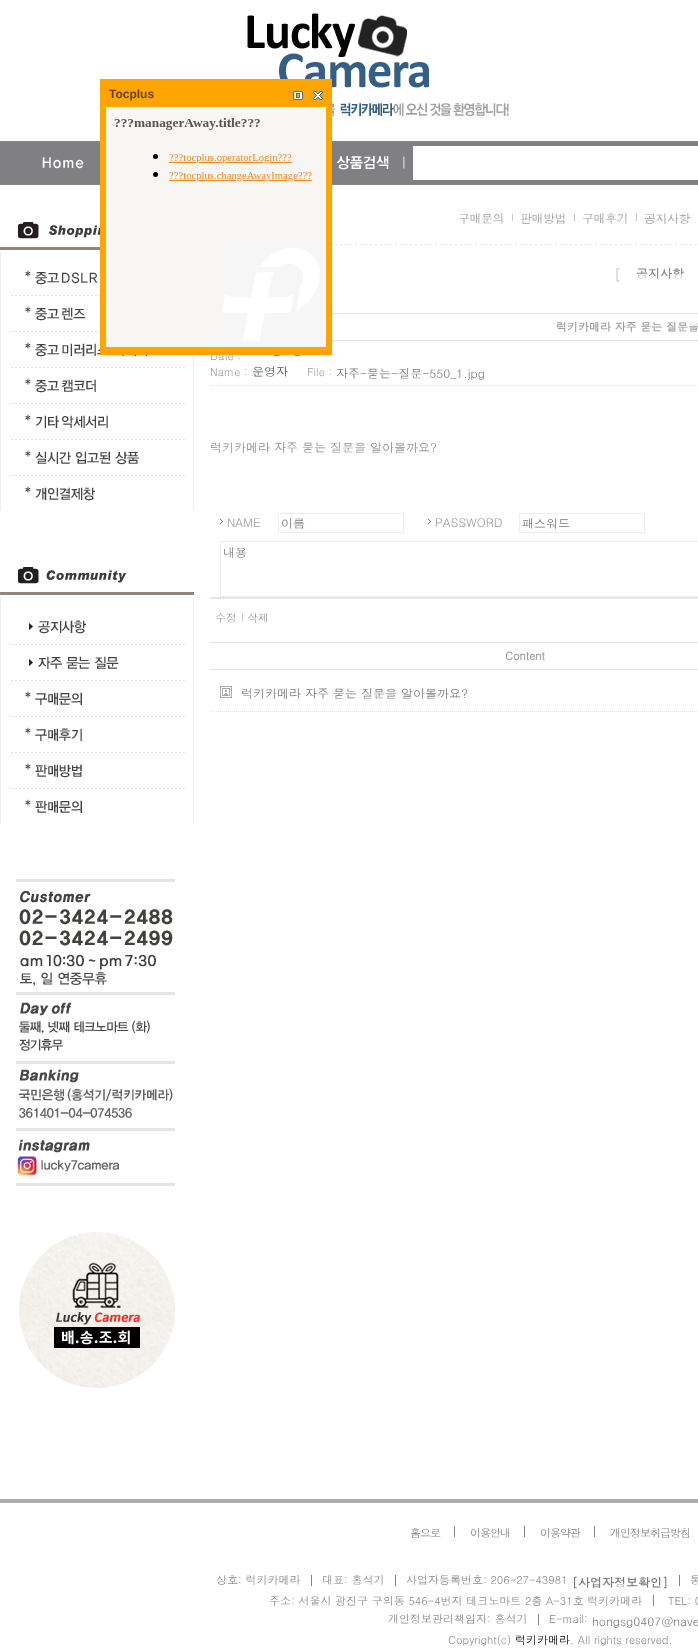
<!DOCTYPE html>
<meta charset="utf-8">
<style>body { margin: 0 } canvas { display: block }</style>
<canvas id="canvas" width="698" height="1648"></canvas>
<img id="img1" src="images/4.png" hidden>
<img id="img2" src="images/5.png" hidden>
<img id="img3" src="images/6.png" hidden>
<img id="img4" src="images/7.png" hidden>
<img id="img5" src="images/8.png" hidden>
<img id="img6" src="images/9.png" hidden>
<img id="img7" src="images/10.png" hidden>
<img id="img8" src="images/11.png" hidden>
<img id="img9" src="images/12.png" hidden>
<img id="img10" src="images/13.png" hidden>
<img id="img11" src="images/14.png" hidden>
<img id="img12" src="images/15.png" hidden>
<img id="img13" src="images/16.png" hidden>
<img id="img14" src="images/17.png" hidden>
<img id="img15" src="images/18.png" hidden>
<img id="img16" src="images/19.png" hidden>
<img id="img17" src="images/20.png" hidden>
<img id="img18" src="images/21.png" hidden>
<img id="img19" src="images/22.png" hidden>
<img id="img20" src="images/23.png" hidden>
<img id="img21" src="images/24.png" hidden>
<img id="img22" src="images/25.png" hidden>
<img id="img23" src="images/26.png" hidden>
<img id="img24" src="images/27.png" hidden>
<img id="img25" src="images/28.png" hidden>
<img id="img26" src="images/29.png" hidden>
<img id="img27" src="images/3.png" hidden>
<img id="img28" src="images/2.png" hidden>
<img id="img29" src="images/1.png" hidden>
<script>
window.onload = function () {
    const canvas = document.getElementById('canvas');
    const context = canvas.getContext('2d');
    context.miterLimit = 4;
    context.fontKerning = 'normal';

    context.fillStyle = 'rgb(255, 255, 255)';
    context.fillRect(0, 0, 698, 1648);
    context.drawImage(document.getElementById('img1'), 178, 13, 331, 105);
    context.drawImage(document.getElementById('img2'), 0, 141, 100, 44);
    context.drawImage(document.getElementById('img3'), 332, 141, 249, 44);
    context.drawImage(document.getElementById('img4'), 332, 146, 81, 34);
    context.drawImage(document.getElementById('img5'), 581, 141, 117, 44);
    context.drawImage(document.getElementById('img6'), 0, 222, 100, 28);
    context.drawImage(document.getElementById('img7'), 0, 252, 100, 44);
    context.drawImage(document.getElementById('img8'), 0, 296, 100, 36);
    context.drawImage(document.getElementById('img9'), 0, 332, 194, 36);
    context.drawImage(document.getElementById('img10'), 0, 368, 194, 36);
    context.drawImage(document.getElementById('img11'), 0, 404, 194, 36);
    context.drawImage(document.getElementById('img12'), 0, 440, 194, 36);
    context.drawImage(document.getElementById('img13'), 0, 476, 194, 35);
    context.drawImage(document.getElementById('img14'), 0, 567, 194, 28);
    context.drawImage(document.getElementById('img15'), 0, 597, 194, 48);
    context.drawImage(document.getElementById('img16'), 0, 645, 194, 36);
    context.drawImage(document.getElementById('img17'), 0, 681, 194, 36);
    context.drawImage(document.getElementById('img18'), 0, 717, 194, 36);
    context.drawImage(document.getElementById('img19'), 0, 753, 194, 36);
    context.drawImage(document.getElementById('img20'), 0, 789, 194, 35);
    context.drawImage(document.getElementById('img21'), 16, 879, 159, 307);
    context.drawImage(document.getElementById('img22'), 19, 1232, 156, 156);
    context.drawImage(document.getElementById('img23'), 332, 244, 365, 1);
    context.fillStyle = 'rgb(197, 197, 197)';
    context.fillRect(512, 214, 1, 7);
    context.fillRect(574, 214, 1, 7);
    context.fillRect(636, 214, 1, 7);
    context.fillStyle = 'rgb(229, 229, 229)';
    context.fillRect(332, 313, 366, 1);
    context.fillRect(332, 340, 366, 1);
    context.drawImage(document.getElementById('img24'), 210, 385, 487, 1);
    context.fillRect(210, 597, 488, 2);
    context.drawImage(document.getElementById('img25'), 220, 519, 3, 5);
    context.strokeStyle = 'rgb(237, 237, 237)';
    context.strokeRect(278.5, 513.5, 125, 19);
    context.drawImage(document.getElementById('img25'), 428, 519, 3, 5);
    context.strokeRect(519.5, 513.5, 125, 19);
    context.strokeRect(220.5, 541.5, 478, 55);
    context.fillStyle = 'rgb(197, 197, 197)';
    context.fillRect(242, 614, 1, 7);
    context.fillStyle = 'rgb(229, 229, 229)';
    context.fillRect(210, 642, 488, 1);
    context.fillRect(210, 669, 488, 1);
    context.drawImage(document.getElementById('img24'), 210, 711, 487, 1);
    context.drawImage(document.getElementById('img26'), 220, 686, 12, 12);
    context.fillStyle = 'rgb(172, 172, 172)';
    context.fillRect(0, 1499, 698, 4);
    context.fillStyle = 'rgb(132, 132, 132)';
    context.fillRect(454, 1526, 1, 11);
    context.fillRect(524, 1526, 1, 11);
    context.fillRect(594, 1526, 1, 11);
    context.fillRect(311, 1575, 1, 11);
    context.fillRect(395, 1575, 1, 11);
    context.fillRect(679, 1575, 1, 11);
    context.fillRect(653, 1595, 1, 11);
    context.fillRect(538, 1614, 1, 11);
    context.letterSpacing = '-0.5px';
    context.font = '12px Dotum';
    context.fillStyle = 'rgb(156, 156, 156)';
    context.fillText('구매문의', 458, 223);
    context.fillText('판매방법', 520, 223);
    context.fillText('구매후기', 582, 223);
    context.fillText('공지사항', 644, 223);
    context.letterSpacing = '0px';
    context.font = 'bold 14px Dotum';
    context.fillStyle = 'rgb(207, 207, 207)';
    context.fillText('[', 614, 280);
    context.font = 'bold 12px Dotum';
    context.fillStyle = 'rgb(138, 138, 138)';
    context.fillText('공지사항', 636, 278);
    context.font = 'bold 11px Dotum';
    context.fillStyle = 'rgb(156, 156, 156)';
    context.fillText('럭키카메라 자주 묻는 질문을', 556, 331);
    context.font = '11px Dotum';
    context.fillText('Date :', 210, 360);
    context.strokeStyle = 'rgb(255, 165, 0)';
    context.lineWidth = 2;
    context.strokeRect(101, 80, 230, 274);
    context.fillStyle = 'rgb(255, 165, 0)';
    context.fillRect(102, 81, 228, 272);
    context.font = 'bold 12px Liberation Sans';
    context.fillStyle = 'rgb(102, 66, 0)';
    context.fillText('Tocplus', 109, 98);
    context.drawImage(document.getElementById('img27'), 106, 107, 220, 240);
    context.drawImage(document.getElementById('img28'), 313, 91, 10, 9);
    context.drawImage(document.getElementById('img29'), 293, 91, 10, 9);
    context.font = '12px Dotum';
    context.fillStyle = 'rgb(85, 85, 85)';
    context.fillText('-', 273, 360);
    context.fillText('-', 294, 360);
    context.font = '11px Dotum';
    context.fillStyle = 'rgb(156, 156, 156)';
    context.fillText('Name :', 210, 376);
    context.font = '12px Dotum';
    context.fillStyle = 'rgb(85, 85, 85)';
    context.fillText('운영자', 252, 376);
    context.font = '11px Dotum';
    context.fillStyle = 'rgb(156, 156, 156)';
    context.fillText('File :', 307, 376);
    context.font = '12px Dotum';
    context.fillStyle = 'rgb(120, 120, 120)';
    context.fillText('자주-묻는-질문-550_1.jpg', 336, 378);
    context.fillStyle = 'rgb(138, 138, 138)';
    context.fillText('럭키카메라 자주 묻는 질문을 알아볼까요?', 210, 452);
    context.fillStyle = 'rgb(156, 156, 156)';
    context.fillText('NAME', 227, 527);
    context.fillStyle = 'rgb(120, 120, 120)';
    context.fillText('이름', 281, 528);
    context.fillStyle = 'rgb(156, 156, 156)';
    context.fillText('PASSWORD', 435, 527);
    context.fillStyle = 'rgb(120, 120, 120)';
    context.fillText('패스워드', 522, 528);
    context.fillText('내용', 223, 557);
    context.font = '11px Dotum';
    context.fillStyle = 'rgb(156, 156, 156)';
    context.fillText('수정', 215, 622);
    context.fillText('삭제', 247, 622);
    context.font = 'bold 11px Dotum';
    context.fillText('Content', 505, 660);
    context.font = '12px Dotum';
    context.fillStyle = 'rgb(120, 120, 120)';
    context.fillText('럭키카메라 자주 묻는 질문을 알아볼까요?', 241, 698);
    context.letterSpacing = '-1px';
    context.font = '11px Dotum';
    context.fillStyle = 'rgb(132, 132, 132)';
    context.fillText('홈으로', 410, 1537);
    context.fillText('이용안내', 470, 1537);
    context.fillText('이용약관', 540, 1537);
    context.fillText('개인정보취급방침', 610, 1537);
    context.letterSpacing = '0px';
    context.fillStyle = 'rgb(138, 138, 138)';
    context.fillText('상호: 럭키카메라', 216, 1584);
    context.fillText('대표: 홍석기', 322, 1584);
    context.fillText('사업자등록번호: 206-27-43981', 406, 1584);
    context.font = 'bold 12px Dotum';
    context.fillStyle = 'rgb(120, 120, 120)';
    context.fillText('[사업자정보확인]', 572, 1587);
    context.font = '11px Dotum';
    context.fillStyle = 'rgb(138, 138, 138)';
    context.fillText('통', 690, 1584);
    context.fillText('주소: 서울시 광진구 구의동 546-4번지 테크노마트 2층 A-31호 럭키카메라', 269, 1605);
    context.fillText('TEL: 0', 668, 1605);
    context.fillText('개인정보관리책임자: 홍석기', 388, 1623);
    context.fillText('E-mail:', 549, 1623);
    context.font = '12px Dotum';
    context.fillStyle = 'rgb(120, 120, 120)';
    context.fillText('hongsg0407@nave', 592, 1626);
    context.font = '11px Dotum';
    context.fillStyle = 'rgb(138, 138, 138)';
    context.fillText('Copyright(c)', 448, 1644);
    context.fillStyle = 'rgb(0, 0, 0)';
    context.fillText('럭키카메라', 515, 1644);
    context.fillStyle = 'rgb(138, 138, 138)';
    context.fillText('. All rights reserved.', 570, 1644);
};
</script>
